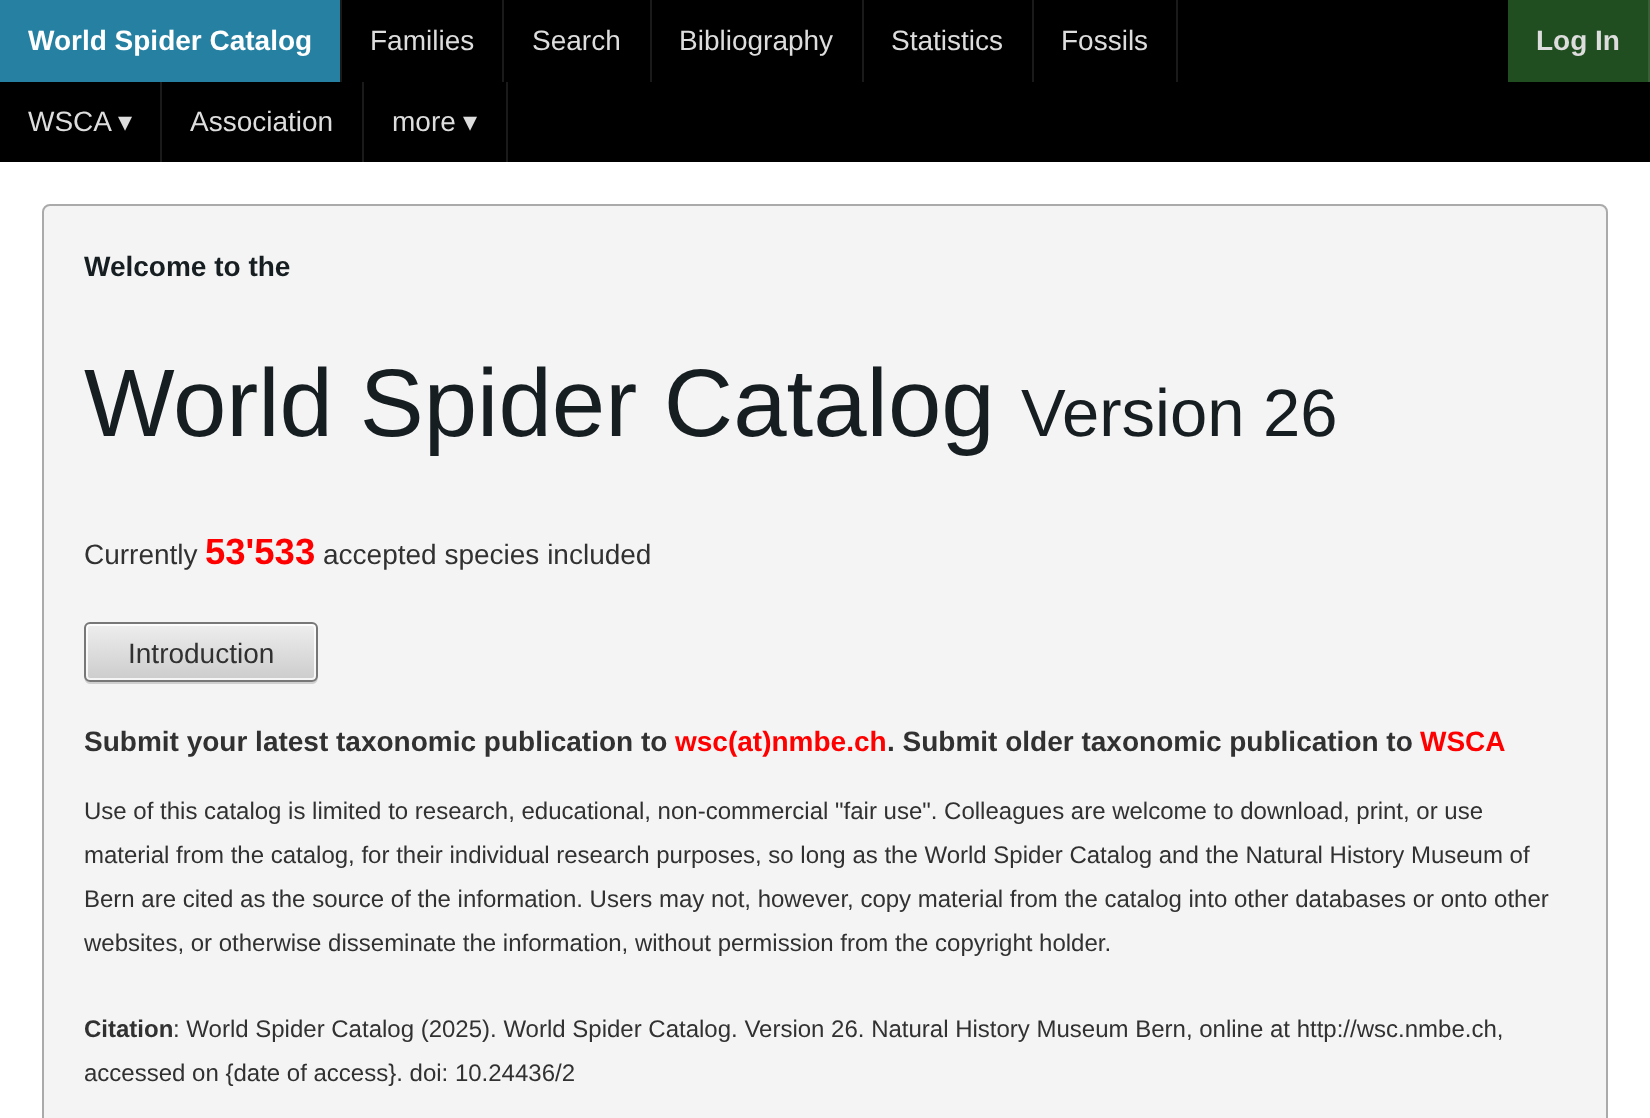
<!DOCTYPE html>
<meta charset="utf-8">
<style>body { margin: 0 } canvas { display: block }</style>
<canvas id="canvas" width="1650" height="1118"></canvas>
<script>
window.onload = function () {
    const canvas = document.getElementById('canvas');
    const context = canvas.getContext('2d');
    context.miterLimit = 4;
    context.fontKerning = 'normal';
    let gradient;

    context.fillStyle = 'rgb(255, 255, 255)';
    context.fillRect(0, 0, 1650, 1118);
    context.fillStyle = 'rgb(0, 0, 0)';
    context.fillRect(0, 0, 1650, 162);
    context.fillStyle = 'rgb(26, 26, 26)';
    context.fillRect(340, 0, 2, 82);
    context.fillStyle = 'rgb(37, 128, 162)';
    context.fillRect(0, 0, 340, 82);
    context.fillStyle = 'rgb(26, 26, 26)';
    context.fillRect(502, 0, 2, 82);
    context.fillRect(650, 0, 2, 82);
    context.fillRect(862, 0, 2, 82);
    context.fillRect(1032, 0, 2, 82);
    context.fillRect(1176, 0, 2, 82);
    context.fillRect(160, 82, 2, 80);
    context.fillRect(362, 82, 2, 80);
    context.fillRect(506, 82, 2, 80);
    context.fillStyle = 'rgb(33, 78, 33)';
    context.fillRect(1508, 0, 140, 82);
    context.fillStyle = 'rgb(55, 96, 55)';
    context.fillRect(1648, 0, 2, 82);
    context.fillStyle = 'rgb(244, 244, 244)';
    context.beginPath();
    context.roundRect(42, 204, 1566, 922, 8);
    context.fill();
    context.beginPath();
    context.roundRect(43, 205, 1564, 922, 7);
    context.strokeStyle = 'rgba(0, 0, 0, 0.3)';
    context.lineWidth = 2;
    context.stroke();
    context.fillStyle = 'rgb(207, 207, 207)';
    context.beginPath();
    context.moveTo(84, 676);
    context.bezierCurveTo(84, 680, 86, 684, 90, 684);
    context.lineTo(313, 684);
    context.bezierCurveTo(317, 683, 318, 680, 318, 676);
    context.bezierCurveTo(318, 679, 315, 682, 312, 682);
    context.lineTo(90, 682);
    context.bezierCurveTo(87, 682, 84, 679, 84, 676);
    context.closePath();
    context.fill();
    context.save();
    context.beginPath();
    context.roundRect(84, 622, 234, 60, 6);
    context.clip();
    gradient = context.createLinearGradient(201, 624, 201, 680);
    gradient.addColorStop(0, 'rgb(238, 238, 238)');
    gradient.addColorStop(1, 'rgb(204, 204, 204)');
    context.fillStyle = gradient;
    context.fillRect(84, 624, 234, 56);
    context.restore();
    context.beginPath();
    context.roundRect(87, 625, 228, 54, 3);
    context.strokeStyle = 'rgba(255, 255, 255, 0.8)';
    context.stroke();
    context.beginPath();
    context.roundRect(85, 623, 232, 58, 5);
    context.strokeStyle = 'rgb(119, 119, 119)';
    context.stroke();
    context.font = 'bold 28px Liberation Sans';
    context.fillStyle = 'rgb(255, 255, 255)';
    context.fillText('World Spider Catalog', 28, 50);
    context.font = '28px Liberation Sans';
    context.fillStyle = 'rgb(221, 221, 221)';
    context.fillText('Families', 370, 50);
    context.fillText('Search', 532, 50);
    context.fillText('Bibliography', 679, 50);
    context.fillText('Statistics', 891, 50);
    context.fillText('Fossils', 1061, 50);
    context.fillText('WSCA', 28, 131);
    context.font = '28px DejaVu Sans';
    context.fillText('▾', 118, 131);
    context.font = '28px Liberation Sans';
    context.fillText('Association', 190, 131);
    context.fillText('more', 392, 131);
    context.font = '28px DejaVu Sans';
    context.fillText('▾', 463, 131);
    context.font = 'bold 28px Liberation Sans';
    context.fillText('Log In', 1536, 50);
    context.fillStyle = 'rgb(22, 30, 33)';
    context.fillText('Welcome to the', 84, 276);
    context.font = '96px Liberation Sans';
    context.fillText('World Spider Catalog', 84, 436);
    context.font = '67px Liberation Sans';
    context.fillText('Version 26', 1021, 436);
    context.font = '28px Liberation Sans';
    context.fillStyle = 'rgb(49, 49, 49)';
    context.fillText('Currently', 84, 564);
    context.font = 'bold 36.5px Liberation Sans';
    context.fillStyle = 'rgb(255, 0, 0)';
    context.fillText('53\'533', 205, 564);
    context.font = '28px Liberation Sans';
    context.fillStyle = 'rgb(49, 49, 49)';
    context.fillText('accepted species included', 323, 564);
    context.fillText('Introduction', 128, 663);
    context.font = 'bold 28px Liberation Sans';
    context.fillText('Submit your latest taxonomic publication to', 84, 751);
    context.fillStyle = 'rgb(255, 0, 0)';
    context.fillText('wsc(at)nmbe.ch', 675, 751);
    context.fillStyle = 'rgb(49, 49, 49)';
    context.fillText('. Submit older taxonomic publication to', 887, 751);
    context.fillStyle = 'rgb(255, 0, 0)';
    context.fillText('WSCA', 1420, 751);
    context.font = '24px Liberation Sans';
    context.fillStyle = 'rgb(49, 49, 49)';
    context.fillText('Use of this catalog is limited to research, educational, non-commercial "fair use". Colleagues are welcome to download, print, or use', 84, 819);
    context.fillText('material from the catalog, for their individual research purposes, so long as the World Spider Catalog and the Natural History Museum of', 84, 863);
    context.fillText('Bern are cited as the source of the information. Users may not, however, copy material from the catalog into other databases or onto other', 84, 907);
    context.fillText('websites, or otherwise disseminate the information, without permission from the copyright holder.', 84, 951);
    context.font = 'bold 24px Liberation Sans';
    context.fillText('Citation', 84, 1037);
    context.font = '24px Liberation Sans';
    context.fillText(': World Spider Catalog (2025). World Spider Catalog. Version 26. Natural History Museum Bern, online at http://wsc.nmbe.ch,', 173, 1037);
    context.fillText('accessed on {date of access}. doi: 10.24436/2', 84, 1081);
};
</script>
